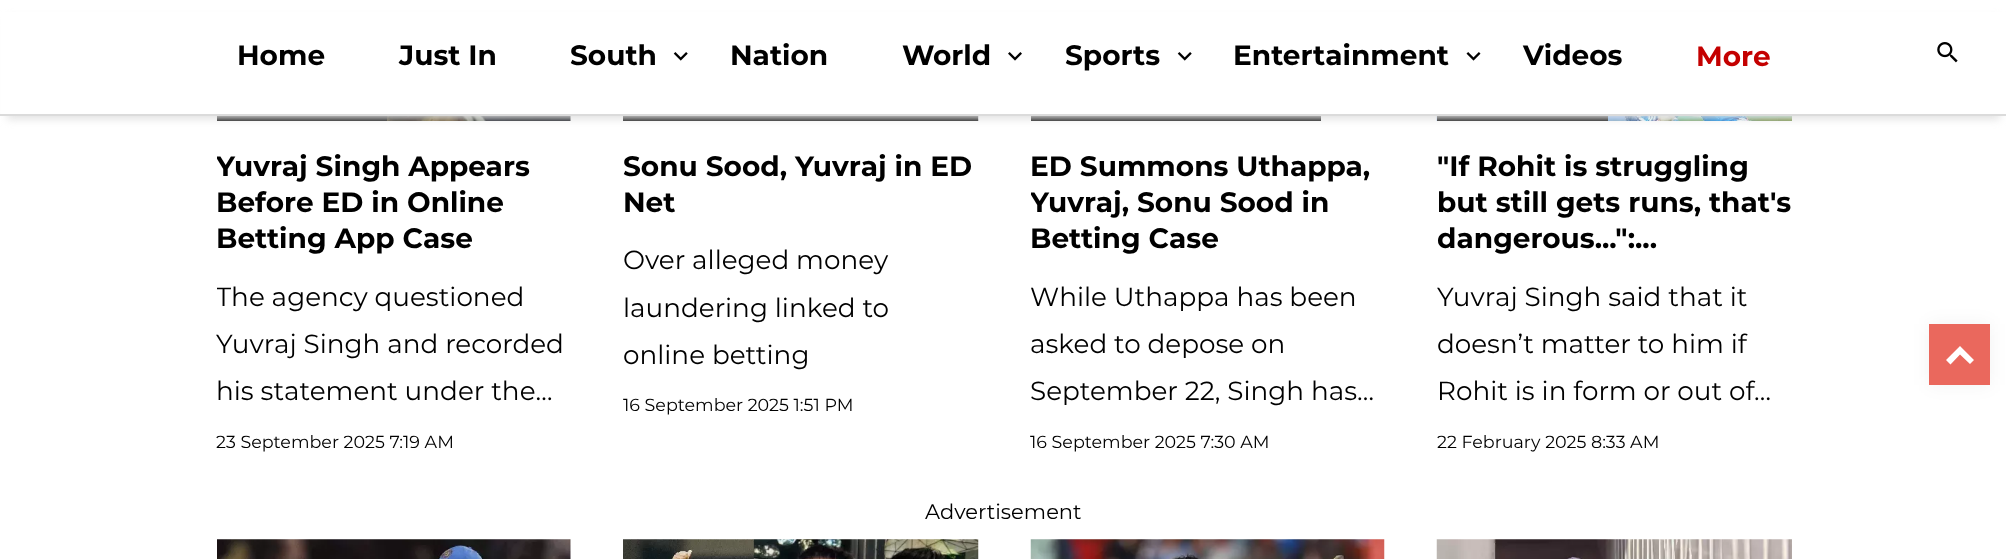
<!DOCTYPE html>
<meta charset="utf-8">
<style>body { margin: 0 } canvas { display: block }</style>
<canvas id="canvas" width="2006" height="559"></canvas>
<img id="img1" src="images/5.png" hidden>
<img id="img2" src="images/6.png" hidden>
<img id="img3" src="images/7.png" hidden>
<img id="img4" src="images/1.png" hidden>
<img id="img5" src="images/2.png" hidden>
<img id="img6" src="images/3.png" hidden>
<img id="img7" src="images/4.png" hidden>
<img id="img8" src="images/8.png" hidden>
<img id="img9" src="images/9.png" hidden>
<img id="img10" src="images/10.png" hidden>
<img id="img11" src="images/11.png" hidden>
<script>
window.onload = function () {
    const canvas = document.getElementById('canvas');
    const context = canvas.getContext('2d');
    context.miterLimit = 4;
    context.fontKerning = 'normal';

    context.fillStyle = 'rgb(255, 255, 255)';
    context.fillRect(0, 0, 2006, 559);
    context.fillStyle = 'rgb(0, 0, 0)';
    context.fillRect(217, 116, 170, 5);
    context.drawImage(document.getElementById('img1'), 387, 116, 184, 5);
    context.fillRect(623, 116, 355, 5);
    context.drawImage(document.getElementById('img2'), 978, 116, 1, 5);
    context.fillRect(1031, 116, 290, 5);
    context.drawImage(document.getElementById('img3'), 1436, 116, 356, 5);
    context.fillRect(1437, 116, 171, 5);
    context.fillStyle = 'rgb(225, 225, 225)';
    context.filter = 'blur(4.5px)';
    context.beginPath();
    context.rect(7, 18, 1993, 101);
    context.fill();
    context.filter = 'none';
    context.fillStyle = 'rgb(255, 255, 255)';
    context.fillRect(1, 12, 2005, 102);
    context.fillStyle = 'rgb(219, 219, 219)';
    context.fillRect(0, 114, 2006, 2);
    context.drawImage(document.getElementById('img4'), 673, 52, 15, 9);
    context.drawImage(document.getElementById('img5'), 1008, 52, 14, 9);
    context.drawImage(document.getElementById('img4'), 1177, 52, 15, 9);
    context.drawImage(document.getElementById('img6'), 1466, 52, 15, 9);
    context.drawImage(document.getElementById('img7'), 1937, 42, 21, 21);
    context.drawImage(document.getElementById('img8'), 217, 539, 354, 20);
    context.drawImage(document.getElementById('img9'), 623, 539, 356, 20);
    context.drawImage(document.getElementById('img10'), 1030, 539, 355, 20);
    context.drawImage(document.getElementById('img11'), 1436, 539, 356, 20);
    context.fillStyle = 'rgba(0, 0, 0, 0.05)';
    context.filter = 'blur(9px)';
    context.beginPath();
    context.rect(1929, 324, 61, 61);
    context.fill();
    context.filter = 'none';
    context.fillStyle = 'rgb(237, 129, 120)';
    context.fillRect(1929, 324, 61, 61);
    context.fillStyle = 'rgba(232, 98, 86, 0.8)';
    context.fillRect(1929, 324, 61, 61);
    context.fillStyle = 'rgb(255, 255, 255)';
    context.beginPath();
    context.moveTo(1960, 346);
    context.lineTo(1974, 360);
    context.lineTo(1970, 364);
    context.lineTo(1960, 354.5);
    context.lineTo(1950.5, 364.5);
    context.lineTo(1946, 360);
    context.closePath();
    context.fill();
    context.font = 'bold 28px Montserrat';
    context.fillStyle = 'rgb(0, 0, 0)';
    context.fillText('Home', 237, 65);
    context.fillText('Just In', 399, 65);
    context.fillText('South', 570, 65);
    context.fillText('Nation', 730, 65);
    context.fillText('World', 902, 65);
    context.fillText('Sports', 1065, 65);
    context.fillText('Entertainment', 1233, 65);
    context.fillText('Videos', 1523, 65);
    context.fillStyle = 'rgb(196, 0, 0)';
    context.fillText('More', 1696, 66);
    context.save();
    context.beginPath();
    context.rect(217, 149, 354, 110);
    context.clip();
    context.fillStyle = 'rgb(0, 0, 0)';
    context.fillText('Yuvraj Singh Appears', 216, 176);
    context.restore();
    context.fillStyle = 'rgb(0, 0, 0)';
    context.fillText('Before ED in Online', 216, 212);
    context.fillText('Betting App Case', 216, 248);
    context.save();
    context.beginPath();
    context.rect(217, 273, 354, 140);
    context.clip();
    context.font = '26.25px Montserrat';
    context.fillText('The agency questioned', 216, 306);
    context.restore();
    context.font = '26.25px Montserrat';
    context.fillText('Yuvraj Singh and recorded', 216, 353);
    context.fillText('his statement under the…', 216, 400);
    context.font = '17.5px Montserrat';
    context.fillText('23 September 2025 7:19 AM', 216, 448);
    context.font = 'bold 28px Montserrat';
    context.fillText('Sonu Sood, Yuvraj in ED', 623, 176);
    context.fillText('Net', 623, 212);
    context.font = '26.25px Montserrat';
    context.fillText('Over alleged money', 623, 269);
    context.fillText('laundering linked to', 623, 317);
    context.fillText('online betting', 623, 364);
    context.font = '17.5px Montserrat';
    context.fillText('16 September 2025 1:51 PM', 623, 411);
    context.font = 'bold 28px Montserrat';
    context.fillText('ED Summons Uthappa,', 1030, 176);
    context.save();
    context.beginPath();
    context.rect(1031, 149, 353, 110);
    context.clip();
    context.fillText('Yuvraj, Sonu Sood in', 1030, 212);
    context.restore();
    context.fillText('Betting Case', 1030, 248);
    context.font = '26.25px Montserrat';
    context.fillText('While Uthappa has been', 1030, 306);
    context.fillText('asked to depose on', 1030, 353);
    context.fillText('September 22, Singh has…', 1030, 400);
    context.font = '17.5px Montserrat';
    context.fillText('16 September 2025 7:30 AM', 1030, 448);
    context.font = 'bold 28px Montserrat';
    context.fillText('"If Rohit is struggling', 1437, 176);
    context.fillText('but still gets runs, that\'s', 1437, 212);
    context.fillText('dangerous...":...', 1437, 248);
    context.font = '26.25px Montserrat';
    context.fillText('Yuvraj Singh said that it', 1437, 306);
    context.fillText('doesn’t matter to him if', 1437, 353);
    context.fillText('Rohit is in form or out of…', 1437, 400);
    context.font = '17.5px Montserrat';
    context.fillText('22 February 2025 8:33 AM', 1437, 448);
    context.font = '21px Montserrat';
    context.fillText('Advertisement', 925, 519);
};
</script>
